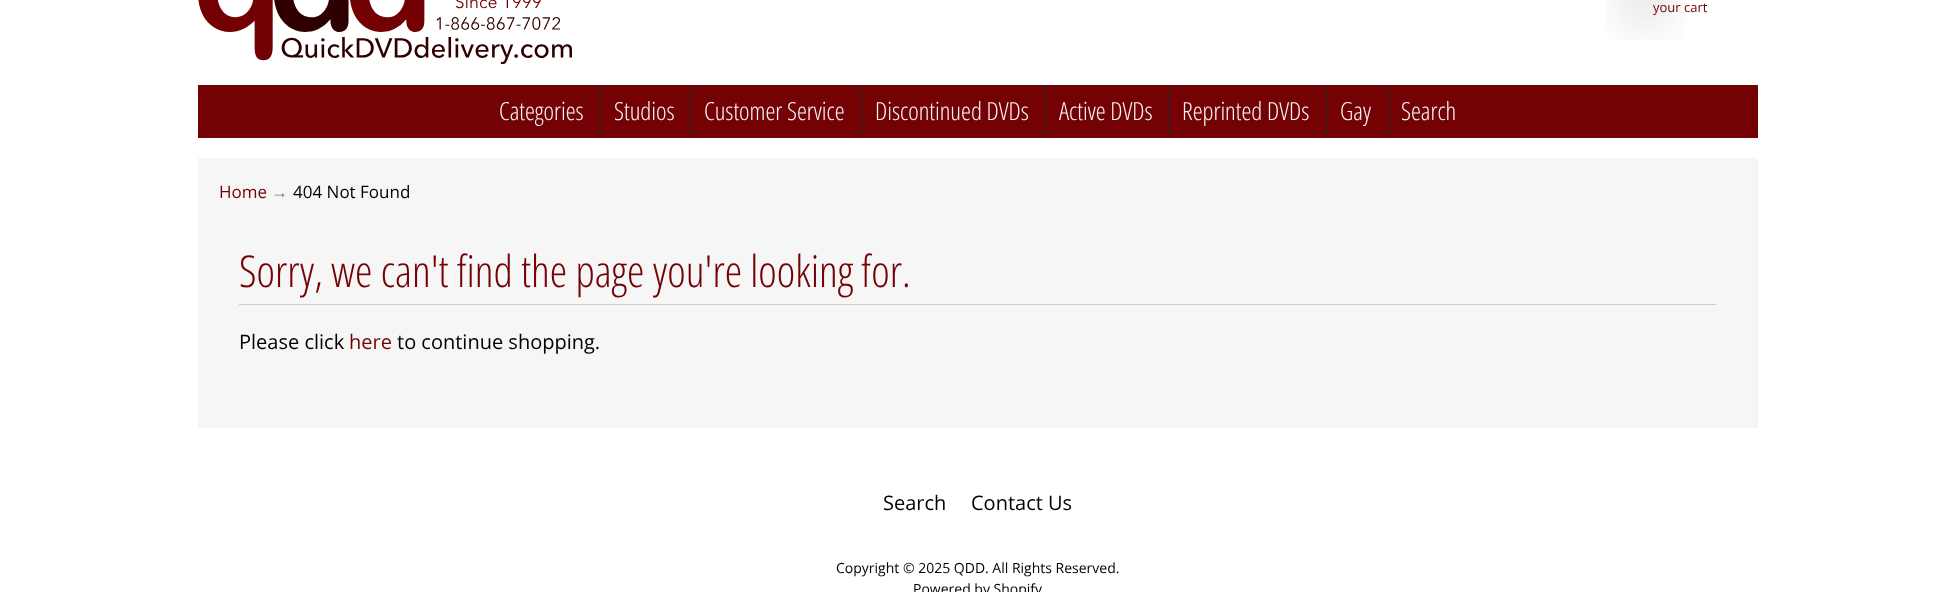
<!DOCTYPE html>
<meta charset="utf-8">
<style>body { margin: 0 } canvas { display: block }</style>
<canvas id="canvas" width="1954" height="592"></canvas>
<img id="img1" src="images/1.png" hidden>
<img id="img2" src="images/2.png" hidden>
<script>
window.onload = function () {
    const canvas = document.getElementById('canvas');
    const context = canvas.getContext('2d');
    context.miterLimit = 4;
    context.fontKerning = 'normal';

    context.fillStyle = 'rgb(255, 255, 255)';
    context.fillRect(0, 0, 1954, 592);
    context.drawImage(document.getElementById('img1'), 198, 0, 374, 64);
    context.drawImage(document.getElementById('img2'), 1606, 0, 80, 40);
    context.fillStyle = 'rgb(116, 2, 4)';
    context.fillRect(198, 85, 1560, 53);
    context.fillStyle = 'rgb(34, 34, 34)';
    context.fillRect(600, 86, 1, 50);
    context.fillRect(690, 86, 1, 50);
    context.fillRect(861, 86, 1, 50);
    context.fillRect(1045, 86, 1, 50);
    context.fillRect(1169, 86, 1, 50);
    context.fillRect(1326, 86, 1, 50);
    context.fillRect(1388, 86, 1, 50);
    context.fillStyle = 'rgb(246, 246, 246)';
    context.beginPath();
    context.rect(198.5, 158.5, 1559, 269);
    context.fill();
    context.strokeStyle = 'rgb(244, 244, 244)';
    context.stroke();
    context.fillStyle = 'rgb(207, 203, 203)';
    context.fillRect(239, 304, 1477, 1);
    context.font = '13px Open Sans';
    context.fillStyle = 'rgb(116, 2, 4)';
    context.fillText('your cart', 1653, 12);
    context.font = '300 25px Open Sans Condensed';
    context.fillStyle = 'rgb(247, 248, 248)';
    context.fillText('Categories', 499, 120);
    context.fillText('Studios', 614, 120);
    context.fillText('Customer Service', 704, 120);
    context.fillText('Discontinued DVDs', 875, 120);
    context.fillText('Active DVDs', 1059, 120);
    context.fillText('Reprinted DVDs', 1182, 120);
    context.fillText('Gay', 1340, 120);
    context.fillText('Search', 1401, 120);
    context.font = '17px Open Sans';
    context.fillStyle = 'rgb(116, 2, 4)';
    context.fillText('Home', 219, 198);
    context.font = '17px Liberation Sans';
    context.fillStyle = 'rgb(123, 123, 123)';
    context.fillText('→', 271, 198);
    context.font = '17px Open Sans';
    context.fillStyle = 'rgb(0, 0, 0)';
    context.fillText('404 Not Found', 293, 198);
    context.font = '300 44px Open Sans Condensed';
    context.fillStyle = 'rgb(116, 2, 4)';
    context.fillText('Sorry, we can\'t find the page you\'re looking for.', 239, 287);
    context.font = '20px Open Sans';
    context.fillStyle = 'rgb(0, 0, 0)';
    context.fillText('Please click', 239, 349);
    context.fillStyle = 'rgb(116, 2, 4)';
    context.fillText('here', 349, 349);
    context.fillStyle = 'rgb(0, 0, 0)';
    context.fillText('to continue shopping.', 397, 349);
    context.fillText('Search', 883, 510);
    context.fillText('Contact Us', 971, 510);
    context.font = '14px Open Sans';
    context.fillText('Copyright © 2025 QDD. All Rights Reserved.', 836, 573);
    context.fillText('Powered by Shopify', 913, 594);
};
</script>
